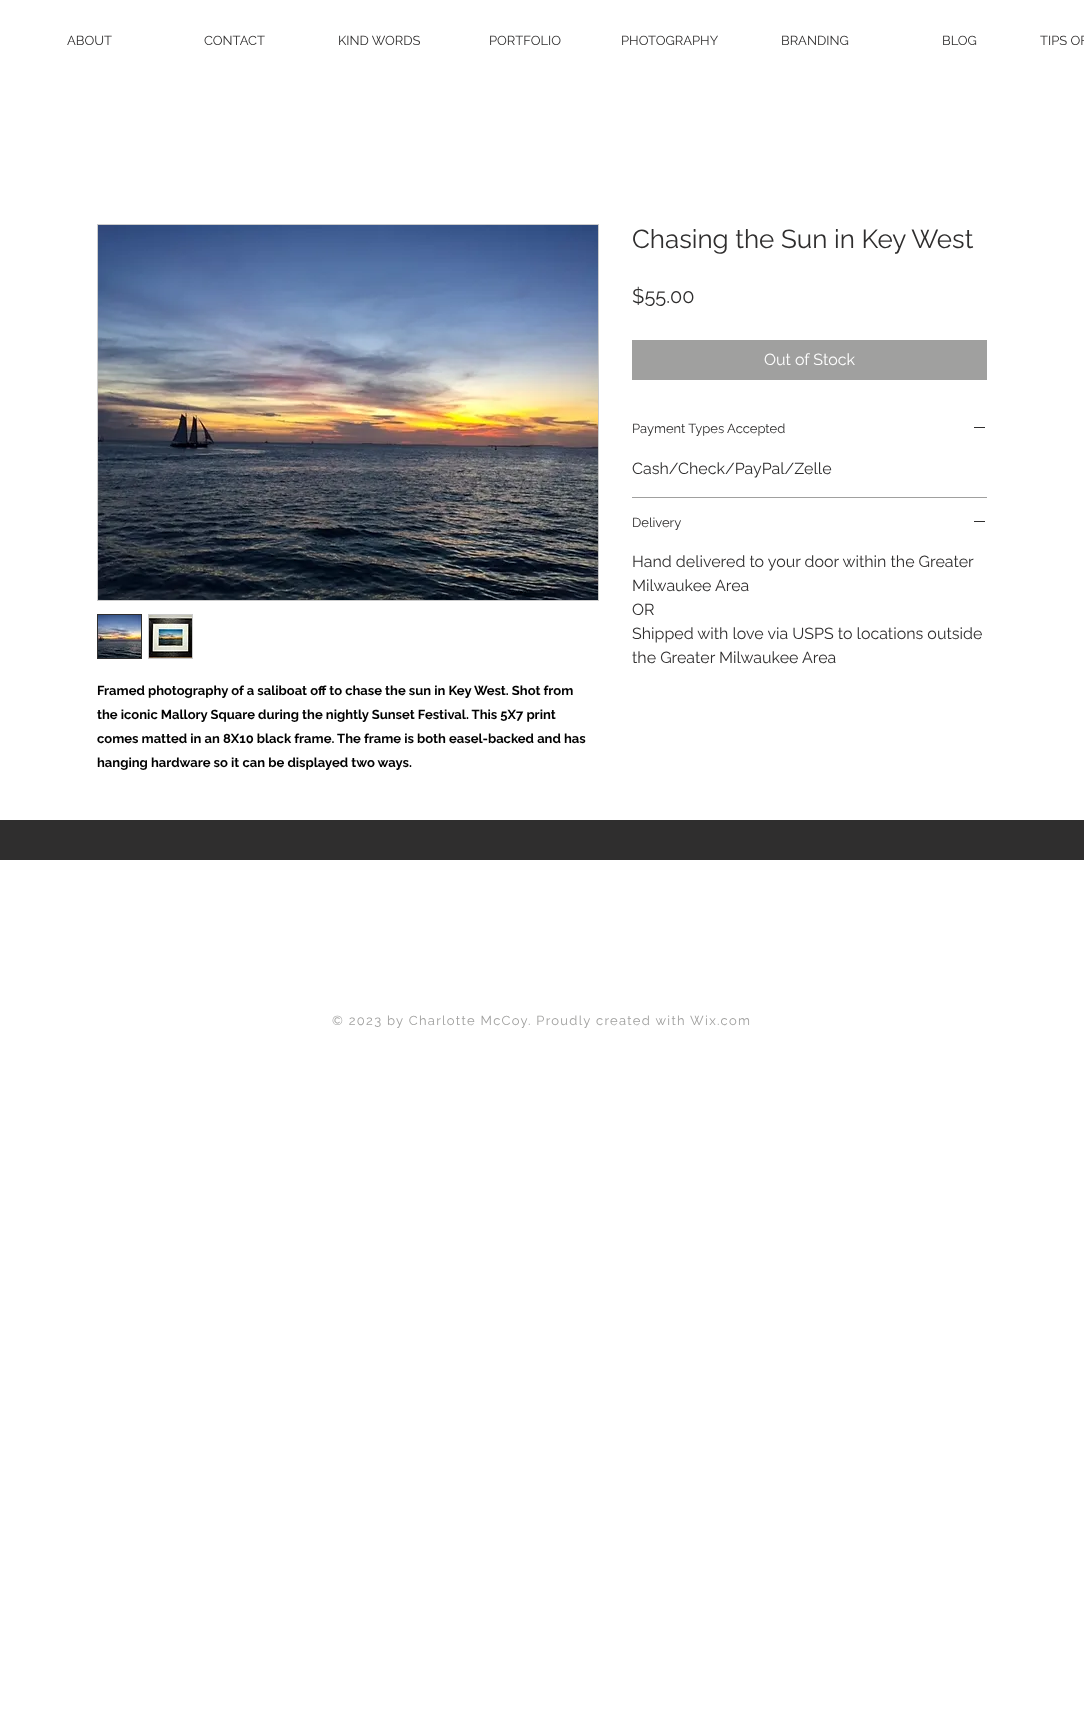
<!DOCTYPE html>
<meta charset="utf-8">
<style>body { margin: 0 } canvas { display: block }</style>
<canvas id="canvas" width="1084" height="1730"></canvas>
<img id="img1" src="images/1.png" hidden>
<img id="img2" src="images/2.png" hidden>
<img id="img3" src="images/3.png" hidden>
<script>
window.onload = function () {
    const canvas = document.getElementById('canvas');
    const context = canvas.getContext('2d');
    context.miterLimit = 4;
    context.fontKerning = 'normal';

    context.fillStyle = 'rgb(255, 255, 255)';
    context.fillRect(0, 0, 1084, 1730);
    context.fillStyle = 'rgb(160, 160, 159)';
    context.fillRect(632, 340, 355, 40);
    context.fillRect(632, 497, 355, 1);
    context.fillStyle = 'rgb(47, 46, 46)';
    context.fillRect(974, 427, 11, 1);
    context.fillRect(974, 521, 11, 1);
    context.strokeStyle = 'rgb(204, 204, 204)';
    context.strokeRect(97.5, 224.5, 501, 376);
    context.drawImage(document.getElementById('img1'), 98, 225, 500, 375);
    context.strokeStyle = 'rgb(47, 46, 46)';
    context.strokeRect(97.5, 614.5, 44, 44);
    context.drawImage(document.getElementById('img2'), 98, 615, 43, 43);
    context.fillStyle = 'rgb(204, 204, 204)';
    context.fillRect(148, 614, 45, 45);
    context.drawImage(document.getElementById('img3'), 149, 615, 43, 43);
    context.fillStyle = 'rgb(47, 46, 46)';
    context.fillRect(0, 820, 1084, 40);
    context.font = '13px Raleway';
    context.fillText('ABOUT', 67, 45);
    context.fillText('CONTACT', 204, 45);
    context.fillText('KIND WORDS', 338, 45);
    context.fillText('PORTFOLIO', 489, 45);
    context.fillText('PHOTOGRAPHY', 621, 45);
    context.fillText('BRANDING', 781, 45);
    context.fillText('BLOG', 942, 45);
    context.fillText('TIPS OF', 1040, 45);
    context.font = '26px Raleway';
    context.fillText('Chasing the Sun in Key West', 632, 248);
    context.font = '20px Raleway';
    context.fillText('$55.00', 632, 303);
    context.font = '16px Raleway';
    context.fillStyle = 'rgb(255, 255, 255)';
    context.fillText('Out of Stock', 764, 365);
    context.font = '13px Raleway';
    context.fillStyle = 'rgb(47, 46, 46)';
    context.fillText('Payment Types Accepted', 632, 433);
    context.font = '16px Raleway';
    context.fillText('Cash/Check/PayPal/Zelle', 632, 474);
    context.font = '13px Raleway';
    context.fillText('Delivery', 632, 527);
    context.font = '16px Raleway';
    context.fillText('Hand delivered to your door within the Greater', 632, 567);
    context.fillText('Milwaukee Area', 632, 591);
    context.fillText('OR', 632, 615);
    context.fillText('Shipped with love via USPS to locations outside', 632, 639);
    context.fillText('the Greater Milwaukee Area', 632, 663);
    context.font = 'bold 13px Raleway';
    context.fillStyle = 'rgb(0, 0, 0)';
    context.fillText('Framed photography of a saliboat off to chase the sun in Key West. Shot from', 97, 695);
    context.fillText('the iconic Mallory Square during the nightly Sunset Festival. This 5X7 print', 97, 719);
    context.fillText('comes matted in an 8X10 black frame. The frame is both easel-backed and has', 97, 743);
    context.fillText('hanging hardware so it can be displayed two ways.', 97, 767);
    context.letterSpacing = '1.3px';
    context.font = '13px Raleway';
    context.fillStyle = 'rgb(160, 160, 159)';
    context.fillText('© 2023 by Charlotte McCoy. Proudly created with Wix.com', 332, 1025);
};
</script>
